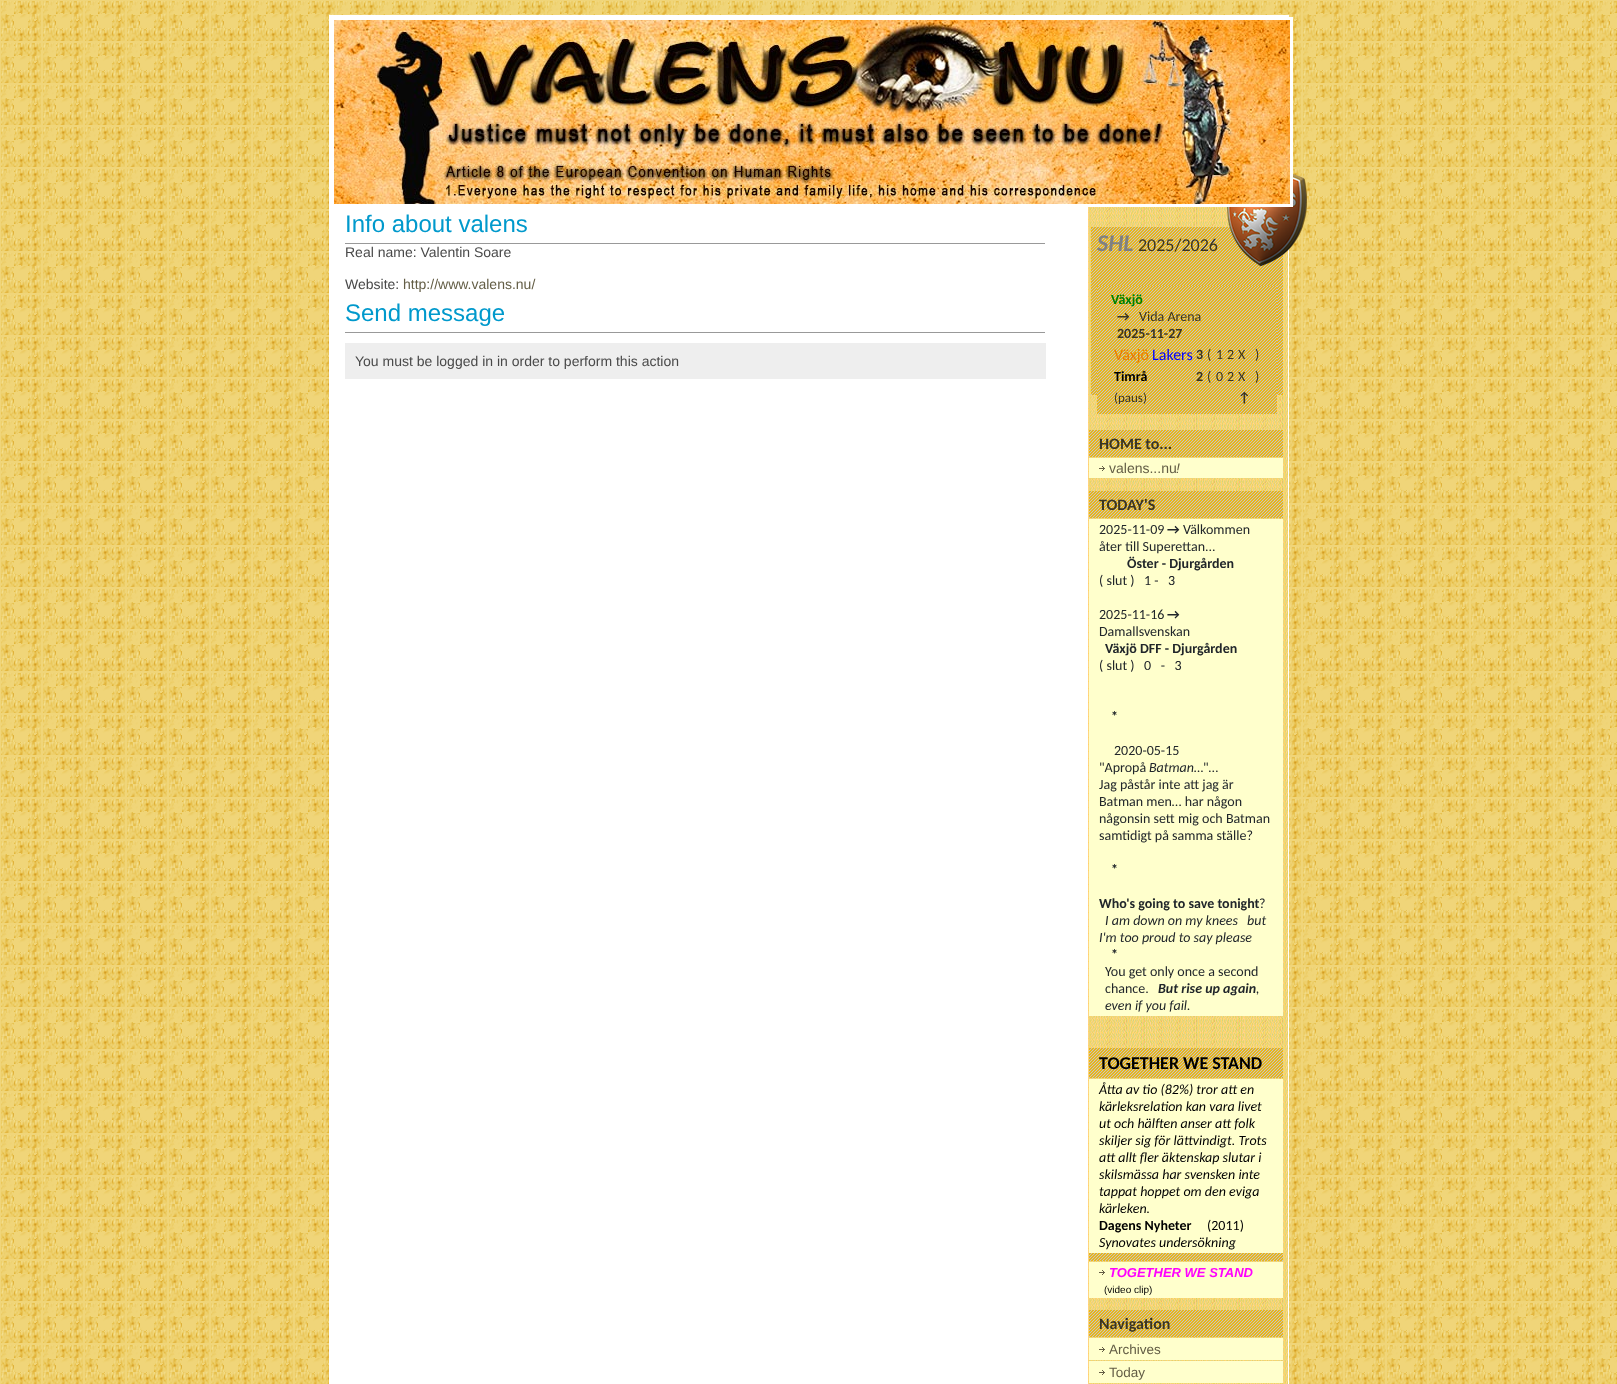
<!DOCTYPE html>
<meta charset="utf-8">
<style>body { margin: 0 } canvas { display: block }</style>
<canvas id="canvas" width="1617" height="1384"></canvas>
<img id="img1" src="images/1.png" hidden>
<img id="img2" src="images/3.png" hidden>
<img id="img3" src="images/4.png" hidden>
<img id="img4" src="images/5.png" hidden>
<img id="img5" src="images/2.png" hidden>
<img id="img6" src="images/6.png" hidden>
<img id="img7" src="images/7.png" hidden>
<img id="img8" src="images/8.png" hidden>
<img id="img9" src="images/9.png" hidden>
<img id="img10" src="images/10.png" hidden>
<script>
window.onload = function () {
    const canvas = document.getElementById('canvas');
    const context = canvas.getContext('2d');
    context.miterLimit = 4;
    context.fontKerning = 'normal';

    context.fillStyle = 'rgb(255, 255, 255)';
    context.fillRect(0, 0, 1617, 1384);
    context.drawImage(document.getElementById('img1'), 0, 0, 1617, 1384);
    context.fillRect(329, 15, 960, 2);
    context.fillRect(329, 15, 2, 186);
    context.fillRect(329, 201, 960, 1183);
    context.drawImage(document.getElementById('img2'), 1088, 207, 200, 1177);
    context.fillStyle = 'rgb(233, 182, 27)';
    context.fillRect(1091, 227, 192, 168);
    context.drawImage(document.getElementById('img3'), 1091, 227, 192, 168);
    context.drawImage(document.getElementById('img4'), 1227, 173, 80, 93);
    context.drawImage(document.getElementById('img5'), 334, 20, 956, 184);
    context.strokeStyle = 'rgb(255, 255, 255)';
    context.lineWidth = 3;
    context.strokeRect(332.5, 18.5, 959, 187);
    context.fillStyle = 'rgb(153, 153, 153)';
    context.fillRect(345, 243, 700, 1);
    context.fillRect(345, 332, 700, 1);
    context.fillStyle = 'rgb(238, 238, 238)';
    context.fillRect(345, 343, 701, 36);
    context.fillStyle = 'rgb(233, 182, 27)';
    context.fillRect(1097, 286, 180, 128);
    context.drawImage(document.getElementById('img6'), 1097, 286, 180, 128);
    context.fillRect(1089, 430, 194, 27);
    context.drawImage(document.getElementById('img7'), 1089, 430, 194, 27);
    context.fillStyle = 'rgb(255, 255, 204)';
    context.fillRect(1089, 458, 194, 20);
    context.drawImage(document.getElementById('img8'), 1099, 466, 6, 5);
    context.fillStyle = 'rgb(233, 182, 27)';
    context.fillRect(1089, 491, 194, 27);
    context.drawImage(document.getElementById('img7'), 1089, 491, 194, 27);
    context.fillStyle = 'rgb(255, 255, 204)';
    context.fillRect(1089, 519, 194, 497);
    context.fillStyle = 'rgb(233, 182, 27)';
    context.fillRect(1089, 1048, 194, 30);
    context.drawImage(document.getElementById('img9'), 1089, 1048, 194, 30);
    context.fillStyle = 'rgb(255, 255, 204)';
    context.fillRect(1089, 1079, 194, 174);
    context.fillStyle = 'rgb(233, 182, 27)';
    context.fillRect(1089, 1253, 194, 8);
    context.drawImage(document.getElementById('img10'), 1089, 1253, 194, 8);
    context.fillStyle = 'rgb(255, 255, 204)';
    context.fillRect(1089, 1262, 194, 36);
    context.drawImage(document.getElementById('img8'), 1099, 1270, 6, 5);
    context.fillStyle = 'rgb(233, 182, 27)';
    context.fillRect(1089, 1310, 194, 27);
    context.drawImage(document.getElementById('img7'), 1089, 1310, 194, 27);
    context.fillStyle = 'rgb(255, 255, 204)';
    context.fillRect(1089, 1338, 194, 22);
    context.drawImage(document.getElementById('img8'), 1099, 1347, 6, 5);
    context.fillRect(1089, 1361, 194, 22);
    context.drawImage(document.getElementById('img8'), 1099, 1370, 6, 5);
    context.font = '24px Liberation Sans';
    context.fillStyle = 'rgb(0, 153, 204)';
    context.fillText('Info about valens', 345, 232);
    context.font = '14px Liberation Sans';
    context.fillStyle = 'rgb(73, 73, 73)';
    context.fillText('Real name: Valentin Soare', 345, 257);
    context.fillText('Website:', 345, 289);
    context.fillStyle = 'rgb(99, 93, 69)';
    context.fillText('http://www.valens.nu/', 403, 289);
    context.font = '24px Liberation Sans';
    context.fillStyle = 'rgb(0, 153, 204)';
    context.fillText('Send message', 345, 321);
    context.font = '14px Liberation Sans';
    context.fillStyle = 'rgb(73, 73, 73)';
    context.fillText('You must be logged in in order to perform this action', 355, 366);
    context.font = 'italic bold 24px Carlito';
    context.fillStyle = 'rgb(128, 128, 128)';
    context.fillText('SHL', 1097, 251);
    context.font = '18px Carlito';
    context.fillStyle = 'rgb(58, 53, 35)';
    context.fillText('2025/2026', 1138, 251);
    context.font = 'bold 14px Carlito';
    context.fillStyle = 'rgb(0, 128, 0)';
    context.fillText('Växjö', 1111, 304);
    context.fillStyle = 'rgb(58, 53, 35)';
    context.fillText('→', 1117, 321);
    context.font = '14px Carlito';
    context.fillText('Vida Arena', 1139, 321);
    context.font = 'bold 14px Carlito';
    context.fillText('2025-11-27', 1117, 338);
    context.font = '16px Carlito';
    context.fillStyle = 'rgb(232, 123, 0)';
    context.fillText('Växjö', 1114, 360);
    context.fillStyle = 'rgb(0, 0, 255)';
    context.fillText('Lakers', 1152, 360);
    context.font = 'bold 14px Carlito';
    context.fillStyle = 'rgb(58, 53, 35)';
    context.fillText('3', 1196, 359);
    context.font = '14px Carlito';
    context.fillText('(', 1207, 359);
    context.fillText('1', 1216, 359);
    context.fillText('2', 1227, 359);
    context.fillText('X', 1238, 359);
    context.fillText(')', 1255, 359);
    context.font = 'bold 14px Carlito';
    context.fillStyle = 'rgb(0, 0, 0)';
    context.fillText('Timrå', 1114, 381);
    context.fillStyle = 'rgb(58, 53, 35)';
    context.fillText('2', 1196, 381);
    context.font = '14px Carlito';
    context.fillText('(', 1207, 381);
    context.fillText('0', 1216, 381);
    context.fillText('2', 1227, 381);
    context.fillText('X', 1238, 381);
    context.fillText(')', 1255, 381);
    context.font = '13px Carlito';
    context.fillText('(paus)', 1114, 402);
    context.font = 'bold 14px Carlito';
    context.fillText('↑', 1238, 402);
    context.font = 'bold 16px Carlito';
    context.fillText('HOME to...', 1099, 449);
    context.font = '14px Liberation Sans';
    context.fillStyle = 'rgb(99, 93, 69)';
    context.fillText('valens...nu', 1109, 473);
    context.font = 'italic 14px Liberation Sans';
    context.fillText('!', 1176, 473);
    context.font = 'bold 16px Carlito';
    context.fillStyle = 'rgb(58, 53, 35)';
    context.fillText('TODAY\'S', 1099, 510);
    context.font = '14px Carlito';
    context.fillStyle = 'rgb(33, 38, 42)';
    context.fillText('2025-11-09', 1099, 534);
    context.font = 'bold 14px Carlito';
    context.fillText('→', 1167, 534);
    context.font = '14px Carlito';
    context.fillText('Välkommen', 1183, 534);
    context.fillText('åter till Superettan...', 1099, 551);
    context.font = 'bold 14px Carlito';
    context.fillText('Öster - Djurgården', 1127, 568);
    context.font = '14px Carlito';
    context.fillText('( slut )   1 -   3', 1099, 585);
    context.fillText('2025-11-16', 1099, 619);
    context.font = 'bold 14px Carlito';
    context.fillText('→', 1167, 619);
    context.font = '14px Carlito';
    context.fillText('Damallsvenskan', 1099, 636);
    context.font = 'bold 14px Carlito';
    context.fillText('Växjö DFF - Djurgården', 1105, 653);
    context.font = '14px Carlito';
    context.fillText('( slut )   0   -   3', 1099, 670);
    context.font = 'bold 14px Carlito';
    context.fillText('*', 1111, 721);
    context.font = '14px Carlito';
    context.fillText('2020-05-15', 1114, 755);
    context.fillText('"Apropå', 1099, 772);
    context.font = 'italic 14px Carlito';
    context.fillText('Batman…', 1149, 772);
    context.font = '14px Carlito';
    context.fillText('"…', 1203, 772);
    context.fillText('Jag påstår inte att jag är', 1099, 789);
    context.fillText('Batman men… har någon', 1099, 806);
    context.fillText('någonsin sett mig och Batman', 1099, 823);
    context.fillText('samtidigt på samma ställe?', 1099, 840);
    context.font = 'bold 14px Carlito';
    context.fillText('*', 1111, 874);
    context.fillText('Who\'s going to save tonight', 1099, 908);
    context.font = '14px Carlito';
    context.fillText('?', 1259, 908);
    context.font = 'italic 14px Carlito';
    context.fillText('I am down on my knees', 1105, 925);
    context.fillText('but', 1247, 925);
    context.fillText('I\'m too proud to say please', 1099, 942);
    context.font = 'bold 14px Carlito';
    context.fillText('*', 1111, 959);
    context.font = '14px Carlito';
    context.fillText('You get only once a second', 1105, 976);
    context.fillText('chance.', 1105, 993);
    context.font = 'italic bold 14px Carlito';
    context.fillText('But rise up again', 1158, 993);
    context.font = 'italic 14px Carlito';
    context.fillText(',', 1256, 993);
    context.fillText('even if you fail.', 1105, 1010);
    context.font = 'bold 18px Carlito';
    context.fillStyle = 'rgb(0, 0, 0)';
    context.fillText('TOGETHER WE STAND', 1099, 1069);
    context.font = 'italic 14px Carlito';
    context.fillText('Åtta av tio (82%) tror att en', 1099, 1094);
    context.fillText('kärleksrelation kan vara livet', 1099, 1111);
    context.fillText('ut och hälften anser att folk', 1099, 1128);
    context.fillText('skiljer sig för lättvindigt. Trots', 1099, 1145);
    context.fillText('att allt fler äktenskap slutar i', 1099, 1162);
    context.fillText('skilsmässa har svensken inte', 1099, 1179);
    context.fillText('tappat hoppet om den eviga', 1099, 1196);
    context.fillText('kärleken.', 1099, 1213);
    context.font = 'bold 14px Carlito';
    context.fillText('Dagens Nyheter', 1099, 1230);
    context.font = '14px Carlito';
    context.fillText('(2011)', 1207, 1230);
    context.font = 'italic 14px Carlito';
    context.fillText('Synovates undersökning', 1099, 1247);
    context.font = 'italic bold 13px Liberation Sans';
    context.fillStyle = 'rgb(255, 0, 255)';
    context.fillText('TOGETHER WE STAND', 1109, 1277);
    context.font = '10px Liberation Sans';
    context.fillStyle = 'rgb(0, 0, 0)';
    context.fillText('(video clip)', 1104, 1293);
    context.font = 'bold 16px Carlito';
    context.fillStyle = 'rgb(58, 53, 35)';
    context.fillText('Navigation', 1099, 1329);
    context.font = '13.5px Liberation Sans';
    context.fillStyle = 'rgb(99, 93, 69)';
    context.fillText('Archives', 1109, 1354);
    context.fillText('Today', 1109, 1377);
};
</script>
